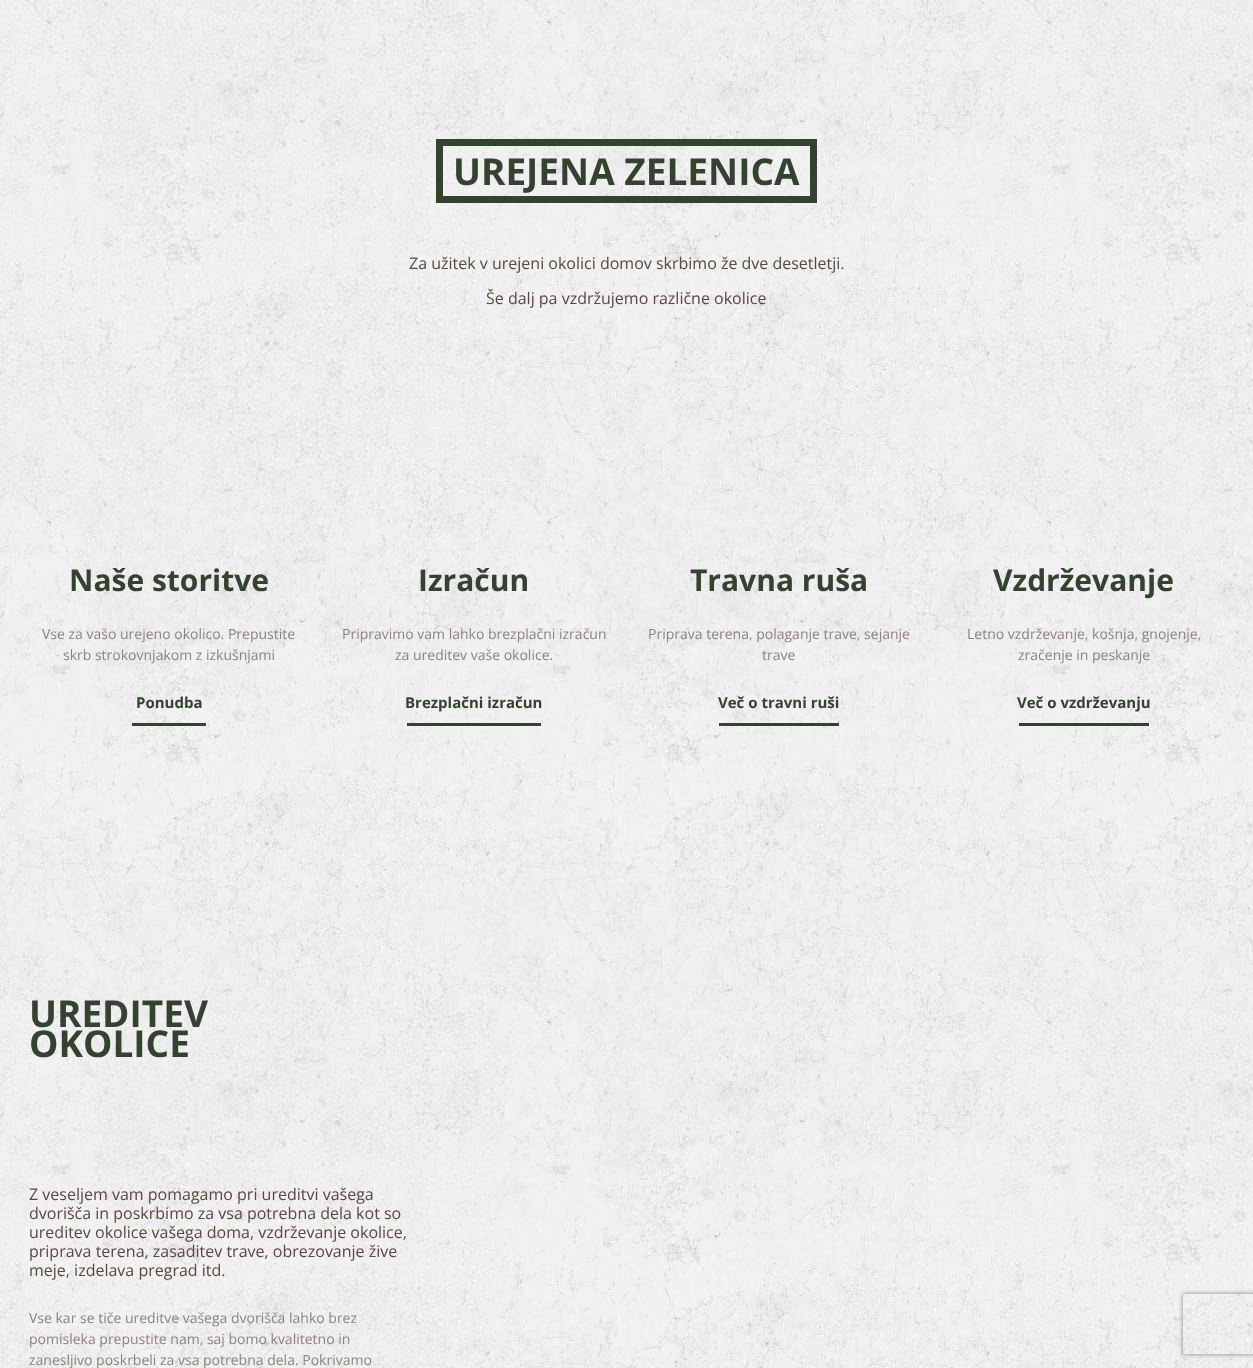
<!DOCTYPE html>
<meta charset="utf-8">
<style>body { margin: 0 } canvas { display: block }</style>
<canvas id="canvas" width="1253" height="1368"></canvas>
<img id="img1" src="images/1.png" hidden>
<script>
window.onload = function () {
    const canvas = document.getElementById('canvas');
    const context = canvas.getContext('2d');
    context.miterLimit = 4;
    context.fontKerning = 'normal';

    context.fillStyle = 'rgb(255, 255, 255)';
    context.fillRect(0, 0, 1253, 1368);
    context.drawImage(document.getElementById('img1'), 0, 0, 1253, 1368);
    context.strokeStyle = 'rgb(51, 67, 48)';
    context.lineWidth = 7;
    context.strokeRect(439.5, 142.5, 374, 57);
    context.fillStyle = 'rgb(51, 67, 48)';
    context.fillRect(132, 723, 74, 3);
    context.fillRect(407, 723, 134, 3);
    context.fillRect(719, 723, 120, 3);
    context.fillRect(1019, 723, 130, 3);
    context.save();
    context.beginPath();
    context.moveTo(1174, 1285);
    context.lineTo(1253, 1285);
    context.lineTo(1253, 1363);
    context.lineTo(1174, 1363);
    context.closePath();
    context.moveTo(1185, 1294);
    context.lineTo(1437, 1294);
    context.bezierCurveTo(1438, 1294, 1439, 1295, 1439, 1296);
    context.lineTo(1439, 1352);
    context.bezierCurveTo(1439, 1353, 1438, 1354, 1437, 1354);
    context.lineTo(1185, 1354);
    context.bezierCurveTo(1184, 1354, 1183, 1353, 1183, 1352);
    context.lineTo(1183, 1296);
    context.bezierCurveTo(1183, 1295, 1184, 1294, 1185, 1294);
    context.closePath();
    context.clip('evenodd');
    context.fillStyle = 'rgb(128, 128, 128)';
    context.filter = 'blur(2.5px)';
    context.beginPath();
    context.roundRect(1183, 1294, 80, 60, 2);
    context.fill();
    context.filter = 'none';
    context.restore();
    context.font = 'bold 37px Open Sans';
    context.fillText('UREJENA ZELENICA', 453, 185);
    context.font = '16px Open Sans';
    context.fillStyle = 'rgb(86, 74, 59)';
    context.fillText('Za užitek v urejeni okolici domov skrbimo že dve desetletji.', 409, 269);
    context.fillText('Še dalj pa vzdržujemo različne okolice', 486, 304);
    context.font = 'bold 30px Open Sans';
    context.fillStyle = 'rgb(51, 67, 48)';
    context.fillText('Naše storitve', 69, 591);
    context.font = '14px Open Sans';
    context.fillStyle = 'rgb(139, 132, 124)';
    context.fillText('Vse za vašo urejeno okolico. Prepustite', 42, 639);
    context.fillText('skrb strokovnjakom z izkušnjami', 63, 660);
    context.font = 'bold 15px Open Sans';
    context.fillStyle = 'rgb(51, 67, 48)';
    context.fillText('Ponudba', 136, 708);
    context.font = 'bold 30px Open Sans';
    context.fillText('Izračun', 418, 591);
    context.font = '14px Open Sans';
    context.fillStyle = 'rgb(139, 132, 124)';
    context.fillText('Pripravimo vam lahko brezplačni izračun', 342, 639);
    context.fillText('za ureditev vaše okolice.', 395, 660);
    context.font = 'bold 15px Open Sans';
    context.fillStyle = 'rgb(51, 67, 48)';
    context.fillText('Brezplačni izračun', 405, 708);
    context.font = 'bold 30px Open Sans';
    context.fillText('Travna ruša', 690, 591);
    context.font = '14px Open Sans';
    context.fillStyle = 'rgb(139, 132, 124)';
    context.fillText('Priprava terena, polaganje trave, sejanje', 648, 639);
    context.fillText('trave', 762, 660);
    context.font = 'bold 15px Open Sans';
    context.fillStyle = 'rgb(51, 67, 48)';
    context.fillText('Več o travni ruši', 718, 708);
    context.font = 'bold 30px Open Sans';
    context.fillText('Vzdrževanje', 993, 591);
    context.font = '14px Open Sans';
    context.fillStyle = 'rgb(139, 132, 124)';
    context.fillText('Letno vzdrževanje, košnja, gnojenje,', 967, 639);
    context.fillText('zračenje in peskanje', 1018, 660);
    context.font = 'bold 15px Open Sans';
    context.fillStyle = 'rgb(51, 67, 48)';
    context.fillText('Več o vzdrževanju', 1017, 708);
    context.font = 'bold 37px Open Sans';
    context.fillText('UREDITEV', 29, 1027);
    context.fillText('OKOLICE', 29, 1057);
    context.font = '16px Open Sans';
    context.fillStyle = 'rgb(86, 74, 59)';
    context.fillText('Z veseljem vam pomagamo pri ureditvi vašega', 29, 1200);
    context.fillText('dvorišča in poskrbimo za vsa potrebna dela kot so', 29, 1219);
    context.fillText('ureditev okolice vašega doma, vzdrževanje okolice,', 29, 1238);
    context.fillText('priprava terena, zasaditev trave, obrezovanje žive', 29, 1257);
    context.fillText('meje, izdelava pregrad itd.', 29, 1276);
    context.font = '14px Open Sans';
    context.fillStyle = 'rgb(139, 132, 124)';
    context.fillText('Vse kar se tiče ureditve vašega dvorišča lahko brez', 29, 1323);
    context.fillText('pomisleka prepustite nam, saj bomo kvalitetno in', 29, 1344);
    context.fillText('zanesljivo poskrbeli za vsa potrebna dela. Pokrivamo', 29, 1365);
};
</script>
